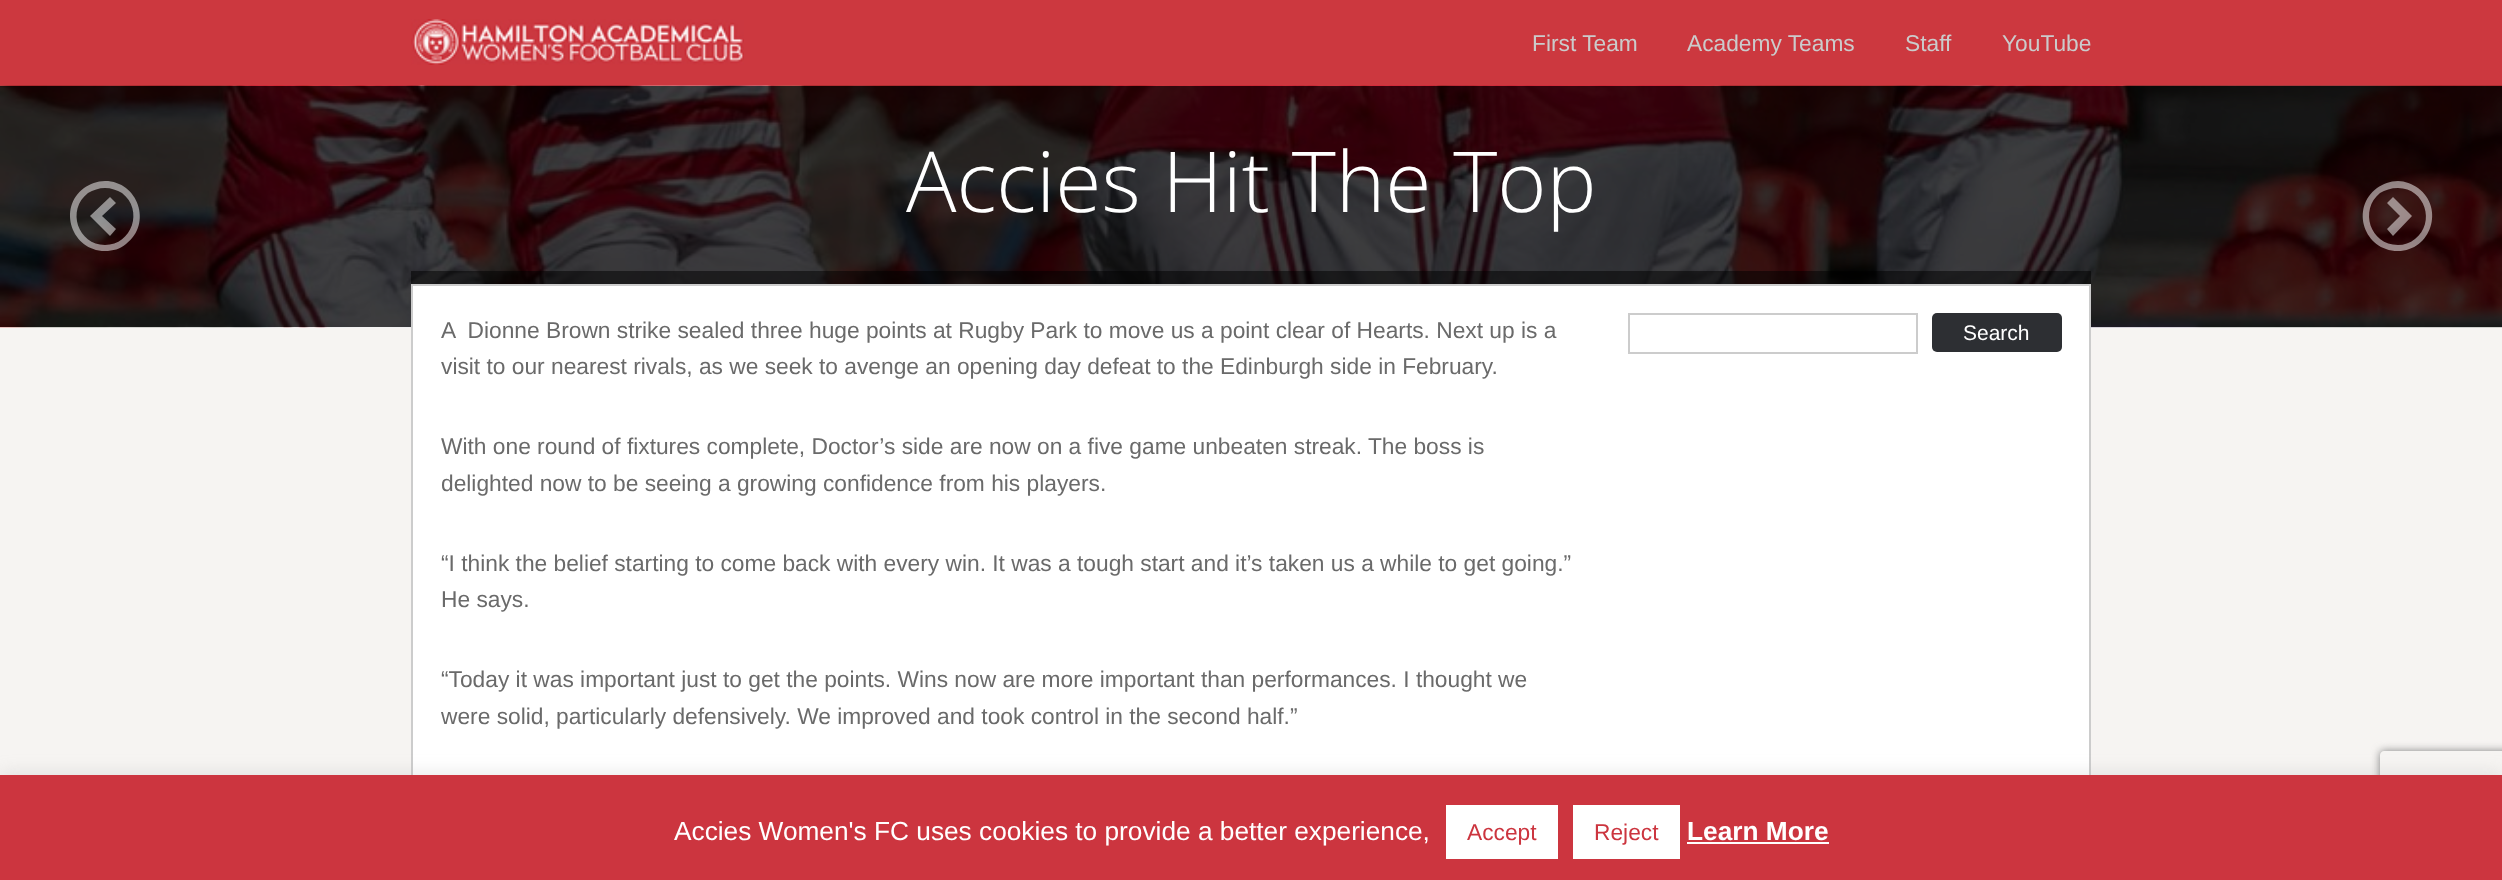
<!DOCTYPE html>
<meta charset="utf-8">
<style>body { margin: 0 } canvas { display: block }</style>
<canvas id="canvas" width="2502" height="880"></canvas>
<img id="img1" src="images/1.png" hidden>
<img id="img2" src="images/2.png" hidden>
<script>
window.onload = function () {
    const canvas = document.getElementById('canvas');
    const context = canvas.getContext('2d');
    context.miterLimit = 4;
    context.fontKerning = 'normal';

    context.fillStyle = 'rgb(246, 244, 242)';
    context.fillRect(0, 0, 2502, 880);
    context.fillStyle = 'rgb(204, 56, 63)';
    context.fillRect(0, 0, 2502, 86);
    context.drawImage(document.getElementById('img1'), 411, 19, 333, 46);
    context.drawImage(document.getElementById('img2'), 0, 85, 2502, 243);
    context.fillStyle = 'rgba(255, 255, 255, 0.5)';
    context.beginPath();
    context.moveTo(105, 251);
    context.bezierCurveTo(113, 251, 120, 249, 126, 244);
    context.bezierCurveTo(153, 224, 138, 181, 105, 181);
    context.bezierCurveTo(97, 181, 90, 184, 84, 188);
    context.bezierCurveTo(57, 208, 72, 251, 105, 251);
    context.closePath();
    context.moveTo(105, 188);
    context.bezierCurveTo(111, 188, 117, 190, 122, 193);
    context.bezierCurveTo(144, 210, 132, 245, 105, 245);
    context.bezierCurveTo(78, 245, 66, 210, 88, 193);
    context.bezierCurveTo(93, 190, 99, 188, 105, 188);
    context.closePath();
    context.moveTo(116, 203);
    context.lineTo(110, 197);
    context.lineTo(90, 216);
    context.lineTo(110, 236);
    context.lineTo(116, 229);
    context.lineTo(102, 216);
    context.closePath();
    context.fill();
    context.beginPath();
    context.moveTo(2398, 181);
    context.bezierCurveTo(2390, 181, 2383, 184, 2377, 188);
    context.bezierCurveTo(2350, 208, 2364, 251, 2398, 251);
    context.bezierCurveTo(2431, 251, 2445, 208, 2418, 188);
    context.bezierCurveTo(2412, 184, 2405, 181, 2398, 181);
    context.closePath();
    context.moveTo(2398, 245);
    context.bezierCurveTo(2370, 245, 2359, 210, 2380, 193);
    context.bezierCurveTo(2385, 190, 2391, 188, 2398, 188);
    context.bezierCurveTo(2425, 188, 2436, 223, 2415, 239);
    context.bezierCurveTo(2410, 243, 2404, 245, 2398, 245);
    context.closePath();
    context.moveTo(2387, 229);
    context.lineTo(2393, 236);
    context.lineTo(2412, 216);
    context.lineTo(2393, 197);
    context.lineTo(2387, 203);
    context.lineTo(2400, 216);
    context.closePath();
    context.fill();
    context.fillStyle = 'rgba(0, 0, 0, 0.5)';
    context.fillRect(411, 271, 1680, 13);
    context.fillStyle = 'rgb(255, 255, 255)';
    context.fillRect(413, 286, 1676, 489);
    context.strokeStyle = 'rgb(204, 204, 204)';
    context.lineWidth = 2;
    context.strokeRect(412, 285, 1678, 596);
    context.strokeRect(1629, 314, 288, 39);
    context.fillStyle = 'rgb(45, 47, 51)';
    context.beginPath();
    context.roundRect(1932, 313, 130, 39, 5);
    context.fill();
    context.fillStyle = 'rgba(172, 171, 171, 0.3)';
    context.filter = 'blur(9px)';
    context.beginPath();
    context.rect(0, 774, 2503, 105);
    context.fill();
    context.filter = 'none';
    context.save();
    context.beginPath();
    context.moveTo(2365, 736);
    context.lineTo(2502, 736);
    context.lineTo(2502, 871);
    context.lineTo(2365, 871);
    context.closePath();
    context.moveTo(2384, 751);
    context.lineTo(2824, 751);
    context.bezierCurveTo(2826, 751, 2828, 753, 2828, 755);
    context.lineTo(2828, 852);
    context.bezierCurveTo(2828, 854, 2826, 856, 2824, 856);
    context.lineTo(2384, 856);
    context.bezierCurveTo(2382, 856, 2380, 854, 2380, 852);
    context.lineTo(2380, 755);
    context.bezierCurveTo(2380, 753, 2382, 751, 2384, 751);
    context.closePath();
    context.clip('evenodd');
    context.fillStyle = 'rgb(128, 128, 128)';
    context.filter = 'blur(4.5px)';
    context.beginPath();
    context.roundRect(2380, 751, 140, 105, 4);
    context.fill();
    context.filter = 'none';
    context.restore();
    context.fillStyle = 'rgb(204, 53, 63)';
    context.fillRect(0, 775, 2502, 105);
    context.fillStyle = 'rgb(255, 255, 255)';
    context.fillRect(1446, 805, 112, 54);
    context.fillRect(1573, 805, 107, 54);
    context.fillRect(1687, 842, 142, 2);
    context.font = '22.75px Liberation Sans';
    context.fillStyle = 'rgb(203, 203, 203)';
    context.fillText('First Team', 1532, 51);
    context.fillText('Academy Teams', 1687, 51);
    context.fillText('Staff', 1905, 51);
    context.fillText('YouTube', 2002, 51);
    context.font = '300 84px Open Sans';
    context.fillStyle = 'rgb(255, 255, 255)';
    context.fillText('Accies Hit The Top', 906, 212);
    context.font = '22.75px Liberation Sans';
    context.fillStyle = 'rgb(106, 106, 106)';
    context.fillText('A  Dionne Brown strike sealed three huge points at Rugby Park to move us a point clear of Hearts. Next up is a', 441, 338);
    context.fillText('visit to our nearest rivals, as we seek to avenge an opening day defeat to the Edinburgh side in February.', 441, 374);
    context.fillText('With one round of fixtures complete, Doctor’s side are now on a five game unbeaten streak. The boss is', 441, 454);
    context.fillText('delighted now to be seeing a growing confidence from his players.', 441, 491);
    context.fillText('“I think the belief starting to come back with every win. It was a tough start and it’s taken us a while to get going.”', 441, 571);
    context.fillText('He says.', 441, 607);
    context.fillText('“Today it was important just to get the points. Wins now are more important than performances. I thought we', 441, 687);
    context.fillText('were solid, particularly defensively. We improved and took control in the second half.”', 441, 724);
    context.font = '21px Liberation Sans';
    context.fillStyle = 'rgb(255, 255, 255)';
    context.fillText('Search', 1963, 340);
    context.font = '26.25px Liberation Sans';
    context.fillText('Accies Women\'s FC uses cookies to provide a better experience,', 674, 840);
    context.font = '22.75px Liberation Sans';
    context.fillStyle = 'rgb(204, 53, 63)';
    context.fillText('Accept', 1467, 840);
    context.fillText('Reject', 1594, 840);
    context.font = 'bold 26.25px Liberation Sans';
    context.fillStyle = 'rgb(255, 255, 255)';
    context.fillText('Learn More', 1687, 840);
};
</script>
